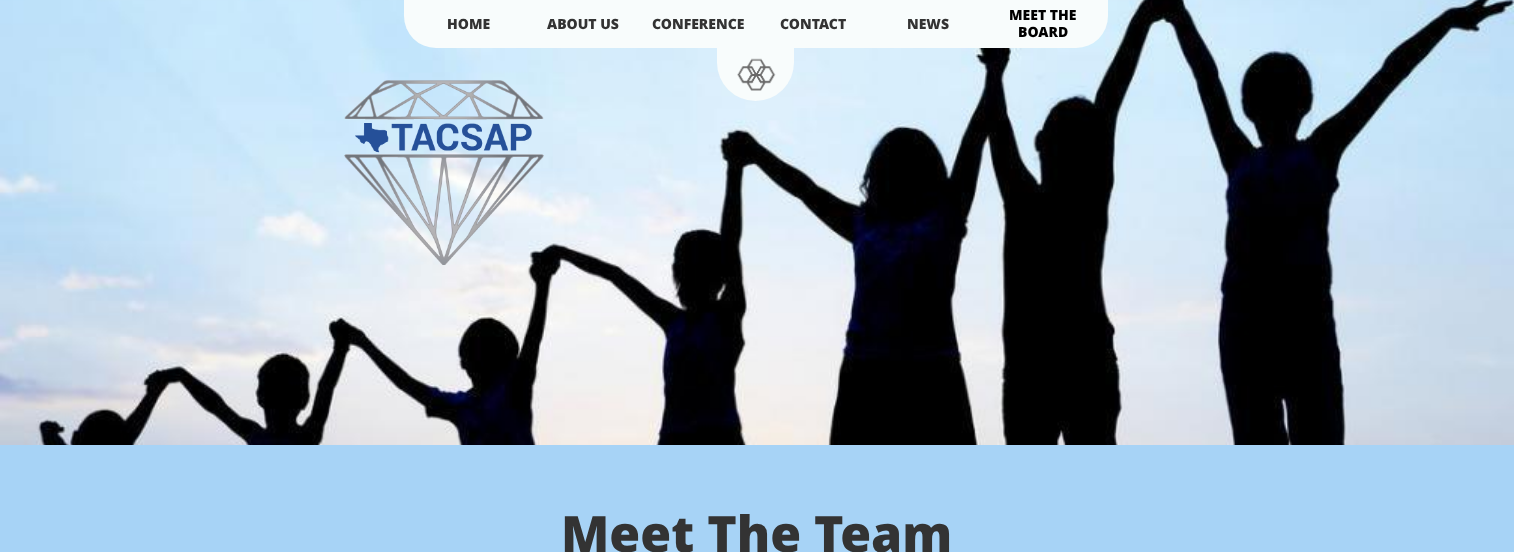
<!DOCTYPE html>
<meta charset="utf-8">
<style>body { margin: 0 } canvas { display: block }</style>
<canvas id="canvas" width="1514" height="552"></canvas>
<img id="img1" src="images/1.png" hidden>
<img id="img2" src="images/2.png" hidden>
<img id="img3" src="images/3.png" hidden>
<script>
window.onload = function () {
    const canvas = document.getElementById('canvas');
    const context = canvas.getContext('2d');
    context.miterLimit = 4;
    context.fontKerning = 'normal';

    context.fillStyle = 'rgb(255, 255, 255)';
    context.fillRect(0, 0, 1514, 552);
    context.drawImage(document.getElementById('img1'), 0, 0, 1514, 445);
    context.fillStyle = 'rgb(248, 252, 252)';
    context.beginPath();
    context.roundRect(404, 0, 704, 48, [0, 0, 32, 32]);
    context.fill();
    context.beginPath();
    context.roundRect(717, 48, 77, 53, [0, 0, 38.5, 38.5]);
    context.fill();
    context.drawImage(document.getElementById('img2'), 737, 58, 39, 33);
    context.drawImage(document.getElementById('img3'), 344, 80, 200, 185);
    context.fillStyle = 'rgb(167, 211, 246)';
    context.fillRect(0, 445, 1514, 107);
    context.font = '800 14px Open Sans';
    context.fillStyle = 'rgb(51, 51, 51)';
    context.fillText('HOME', 447, 29);
    context.fillText('ABOUT US', 547, 29);
    context.fillText('CONFERENCE', 652, 29);
    context.fillText('CONTACT', 780, 29);
    context.fillText('NEWS', 907, 29);
    context.fillStyle = 'rgb(0, 0, 0)';
    context.fillText('MEET THE', 1009, 20);
    context.fillText('BOARD', 1018, 37);
    context.font = '800 50px Open Sans';
    context.fillStyle = 'rgb(51, 51, 51)';
    context.fillText('Meet The Team', 561, 552);
};
</script>
